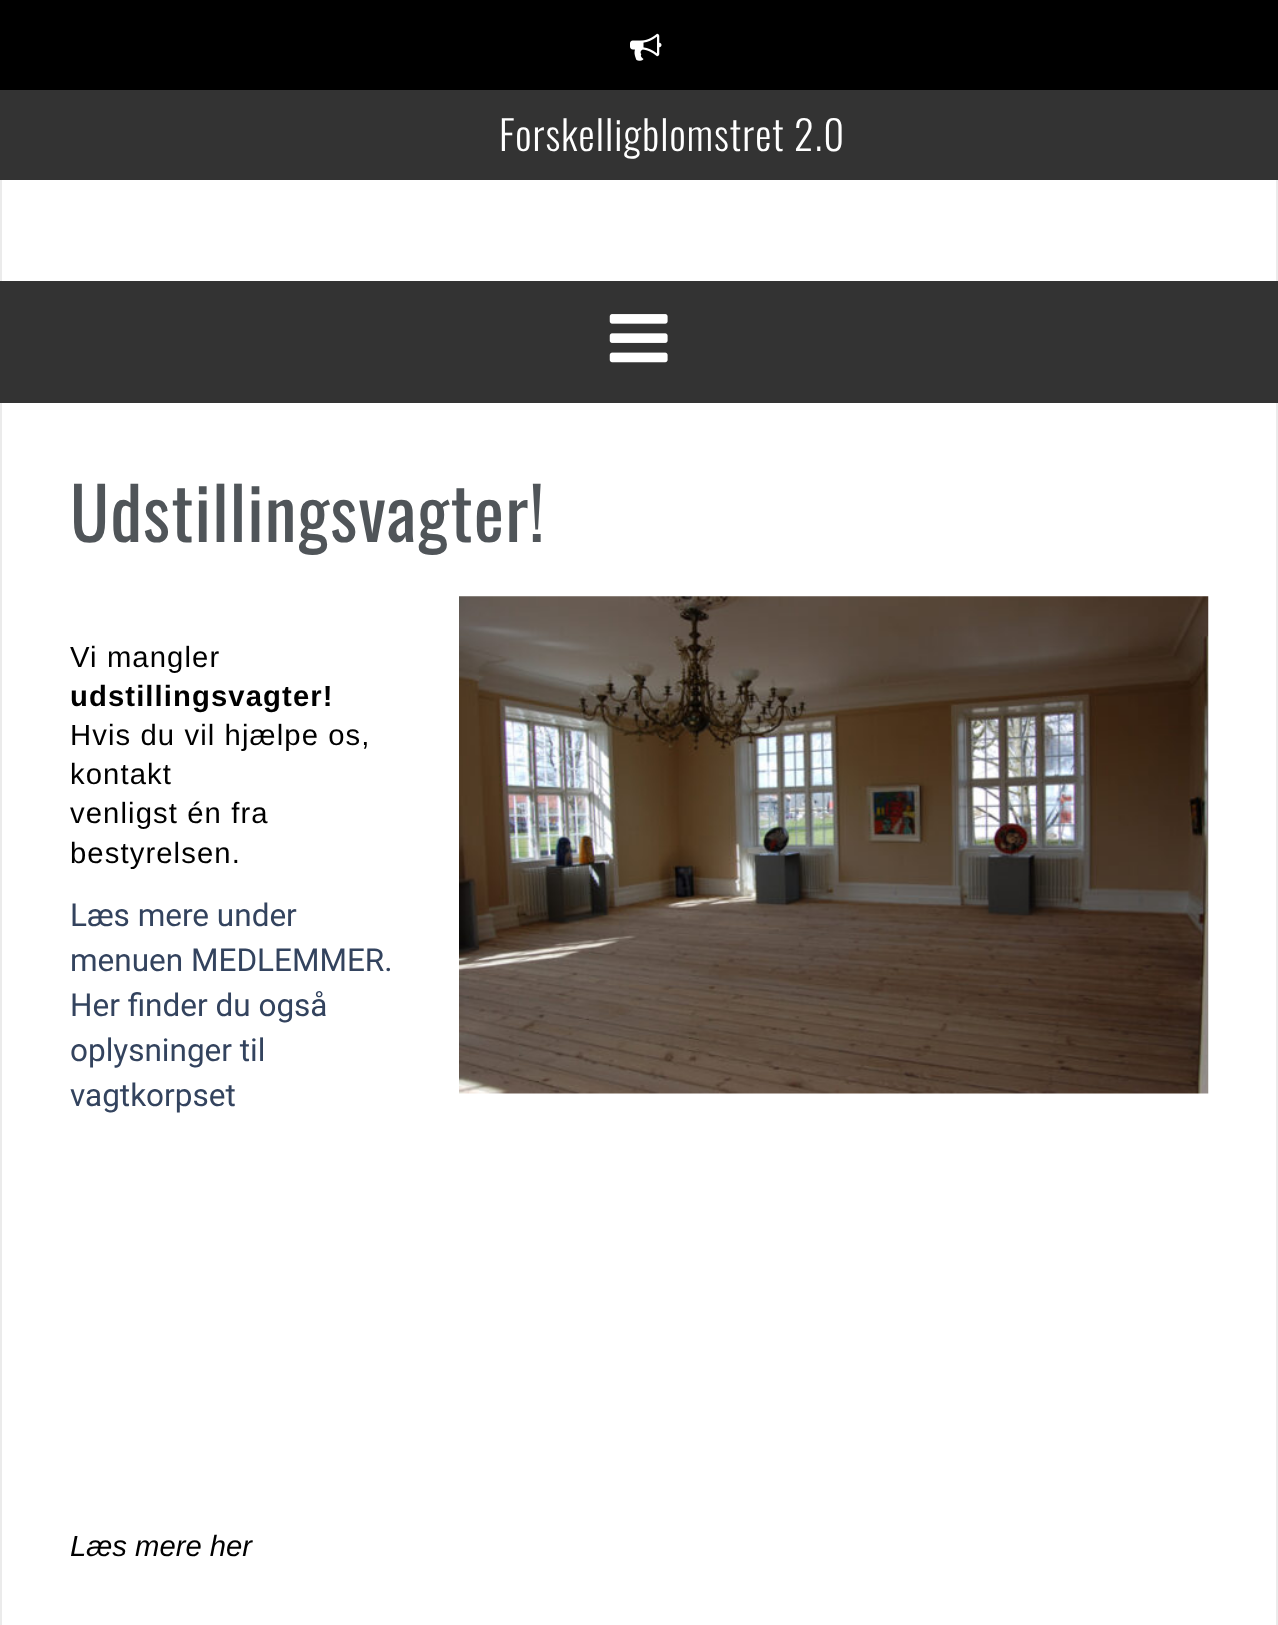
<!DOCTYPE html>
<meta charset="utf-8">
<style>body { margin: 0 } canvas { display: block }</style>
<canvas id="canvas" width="1278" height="1625"></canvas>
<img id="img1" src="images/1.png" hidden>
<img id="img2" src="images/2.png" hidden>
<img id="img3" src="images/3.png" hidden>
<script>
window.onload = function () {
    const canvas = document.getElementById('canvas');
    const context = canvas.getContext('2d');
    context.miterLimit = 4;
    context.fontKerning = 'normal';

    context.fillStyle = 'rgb(255, 255, 255)';
    context.fillRect(0, 0, 1278, 1625);
    context.fillStyle = 'rgb(0, 0, 0)';
    context.fillRect(0, 0, 1278, 90);
    context.drawImage(document.getElementById('img1'), 630, 33, 32, 28);
    context.fillStyle = 'rgb(51, 51, 51)';
    context.fillRect(0, 90, 1278, 90);
    context.fillStyle = 'rgb(235, 235, 235)';
    context.fillRect(1276, 180, 2, 101);
    context.fillRect(0, 180, 2, 101);
    context.fillStyle = 'rgb(51, 51, 51)';
    context.fillRect(0, 281, 1278, 122);
    context.drawImage(document.getElementById('img2'), 609, 314, 59, 49);
    context.fillStyle = 'rgb(235, 235, 235)';
    context.fillRect(1276, 403, 2, 1222);
    context.fillRect(0, 403, 2, 1222);
    context.drawImage(document.getElementById('img3'), 459, 596, 750, 498);
    context.letterSpacing = '1.1px';
    context.font = '300 40.5px Oswald';
    context.fillStyle = 'rgb(255, 255, 255)';
    context.fillText('Forskelligblomstret 2.0', 499, 151);
    context.font = '72px Oswald';
    context.fillStyle = 'rgb(80, 85, 89)';
    context.fillText('Udstillingsvagter!', 70, 542);
    context.font = '29.25px Liberation Sans';
    context.fillStyle = 'rgb(0, 0, 0)';
    context.fillText('Vi mangler', 70, 667);
    context.font = 'bold 29.25px Liberation Sans';
    context.fillText('udstillingsvagter!', 70, 706);
    context.font = '29.25px Liberation Sans';
    context.fillText('Hvis du vil hjælpe os,', 70, 745);
    context.fillText('kontakt', 70, 784);
    context.fillText('venligst én fra', 70, 823);
    context.fillText('bestyrelsen.', 70, 863);
    context.letterSpacing = '0px';
    context.font = '31.5px Roboto';
    context.fillStyle = 'rgb(51, 67, 94)';
    context.fillText('Læs mere under', 70, 926);
    context.fillText('menuen MEDLEMMER.', 70, 971);
    context.fillText('Her finder du også', 70, 1016);
    context.fillText('oplysninger til', 70, 1061);
    context.fillText('vagtkorpset', 70, 1106);
    context.font = 'italic 29.25px Liberation Sans';
    context.fillStyle = 'rgb(0, 0, 0)';
    context.fillText('Læs mere her', 70, 1556);
};
</script>
